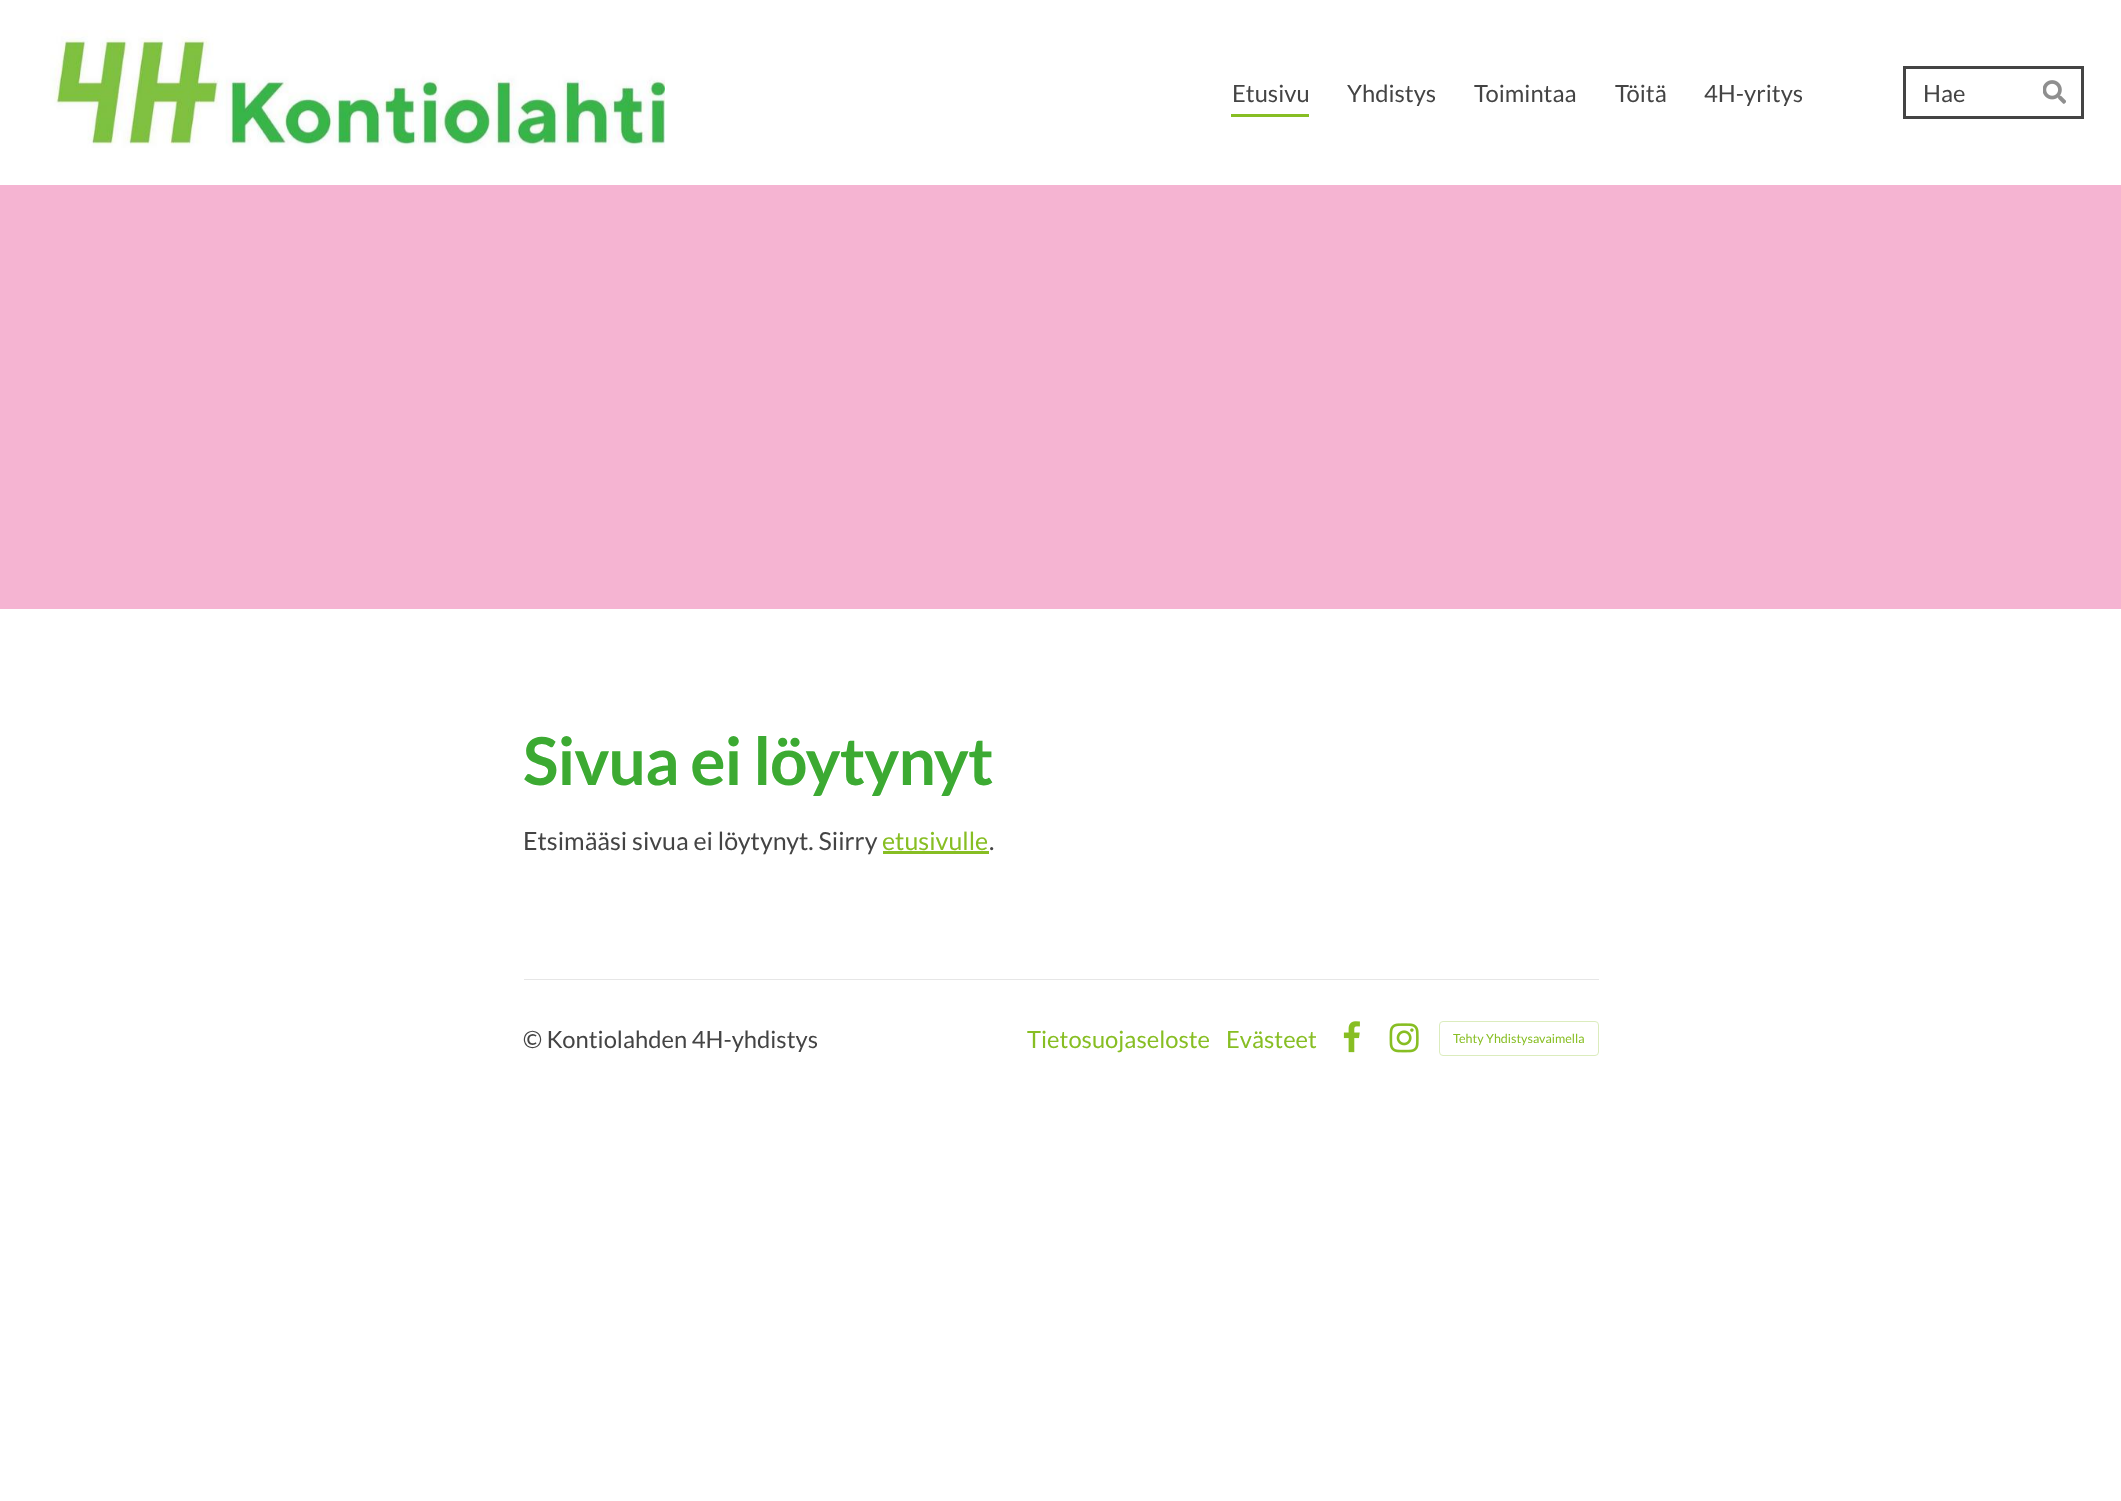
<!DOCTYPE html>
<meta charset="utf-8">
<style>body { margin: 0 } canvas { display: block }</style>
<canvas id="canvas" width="2121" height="1501"></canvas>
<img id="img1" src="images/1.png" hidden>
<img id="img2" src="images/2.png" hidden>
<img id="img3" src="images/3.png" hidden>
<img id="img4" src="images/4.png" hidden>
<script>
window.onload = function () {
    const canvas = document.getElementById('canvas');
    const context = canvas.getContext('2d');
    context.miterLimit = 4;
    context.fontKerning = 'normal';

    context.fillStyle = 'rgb(255, 255, 255)';
    context.fillRect(0, 0, 2121, 1501);
    context.fillStyle = 'rgb(245, 180, 210)';
    context.fillRect(0, 185, 2121, 424);
    context.drawImage(document.getElementById('img1'), 50, 30, 615, 118);
    context.fillStyle = 'rgb(135, 190, 35)';
    context.fillRect(1231, 114, 78, 3);
    context.strokeStyle = 'rgb(68, 68, 68)';
    context.lineWidth = 3;
    context.strokeRect(1904.5, 67.5, 178, 50);
    context.drawImage(document.getElementById('img2'), 2043, 80, 23, 24);
    context.fillRect(883, 851, 106, 3);
    context.fillStyle = 'rgb(230, 230, 230)';
    context.fillRect(524, 979, 1075, 1);
    context.drawImage(document.getElementById('img3'), 1343, 1021, 17, 32);
    context.drawImage(document.getElementById('img4'), 1389, 1023, 30, 30);
    context.beginPath();
    context.roundRect(1439.5, 1021.5, 159, 34, 3.5);
    context.strokeStyle = 'rgb(219, 236, 189)';
    context.lineWidth = 1;
    context.stroke();
    context.font = '23.75px Lato';
    context.fillStyle = 'rgb(68, 68, 68)';
    context.fillText('Etusivu', 1232, 102);
    context.fillText('Yhdistys', 1347, 102);
    context.fillText('Toimintaa', 1474, 102);
    context.fillText('Töitä', 1615, 102);
    context.fillText('4H-yritys', 1704, 102);
    context.fillText('Hae', 1923, 102);
    context.letterSpacing = '-1px';
    context.font = 'bold 66px Lato';
    context.fillStyle = 'rgb(60, 170, 50)';
    context.fillText('Sivua ei löytynyt', 523, 785);
    context.letterSpacing = '0px';
    context.font = '25px Lato';
    context.fillStyle = 'rgb(68, 68, 68)';
    context.fillText('Etsimääsi sivua ei löytynyt. Siirry', 523, 850);
    context.fillStyle = 'rgb(135, 190, 35)';
    context.fillText('etusivulle', 882, 850);
    context.fillStyle = 'rgb(68, 68, 68)';
    context.fillText('.', 989, 850);
    context.font = '23.75px Lato';
    context.fillText('© Kontiolahden 4H-yhdistys', 523, 1048);
    context.fillStyle = 'rgb(135, 190, 35)';
    context.fillText('Tietosuojaseloste', 1027, 1048);
    context.fillText('Evästeet', 1226, 1048);
    context.font = '12.5px Lato';
    context.fillText('Tehty Yhdistysavaimella', 1453, 1043);
};
</script>
